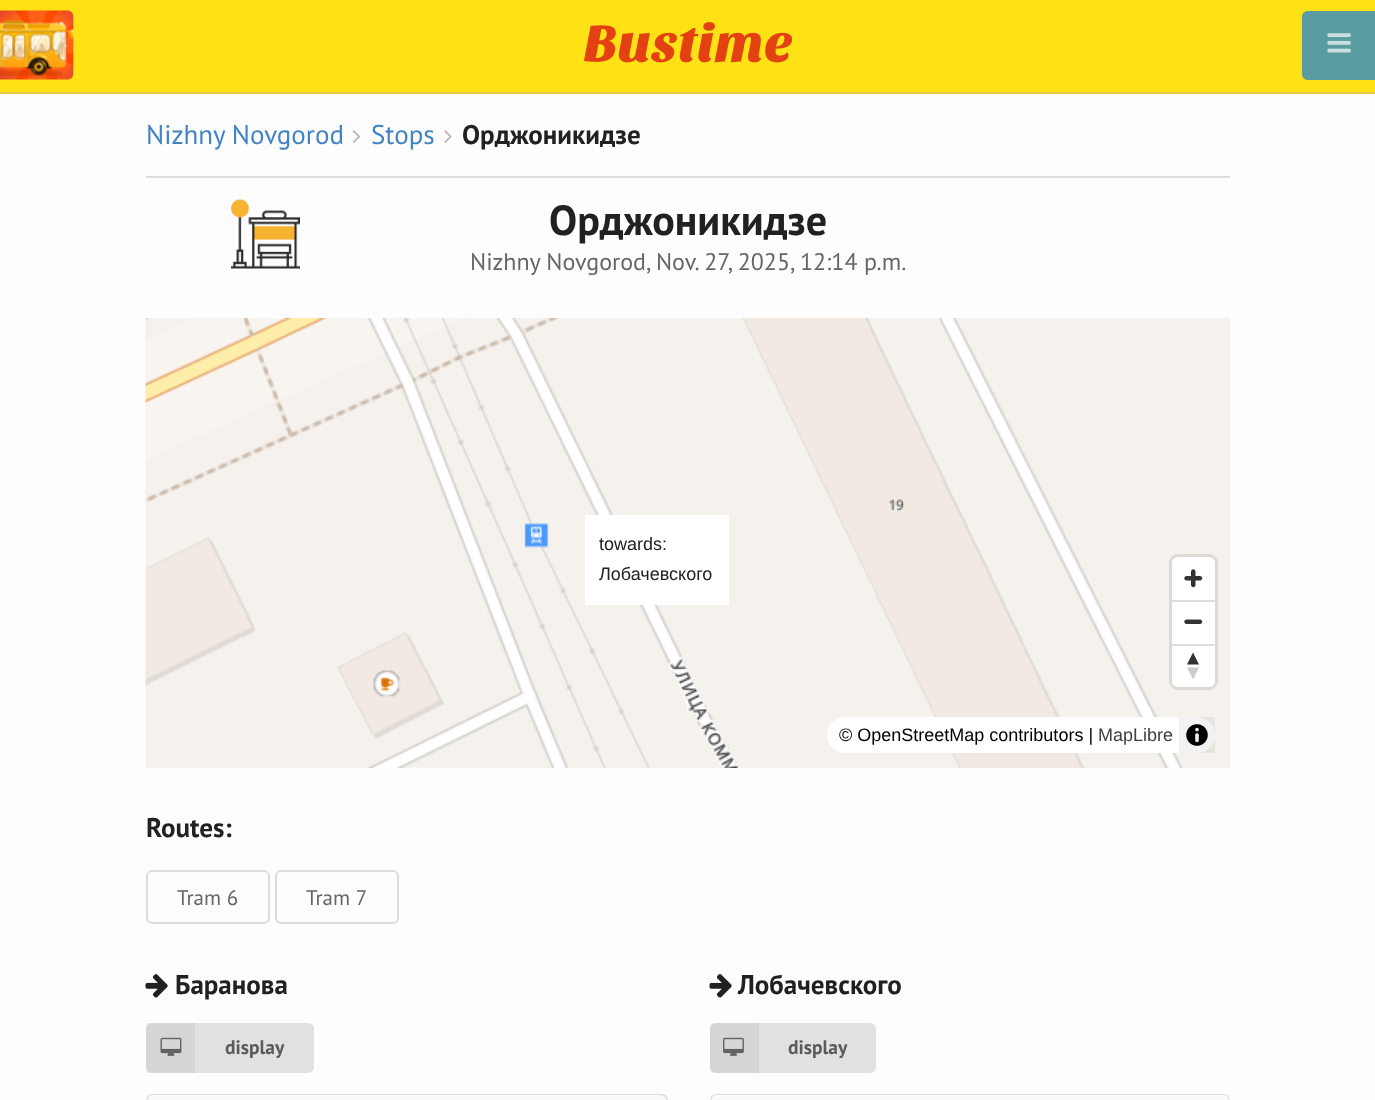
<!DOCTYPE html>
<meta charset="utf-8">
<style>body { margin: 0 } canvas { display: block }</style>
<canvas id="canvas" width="1375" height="1100"></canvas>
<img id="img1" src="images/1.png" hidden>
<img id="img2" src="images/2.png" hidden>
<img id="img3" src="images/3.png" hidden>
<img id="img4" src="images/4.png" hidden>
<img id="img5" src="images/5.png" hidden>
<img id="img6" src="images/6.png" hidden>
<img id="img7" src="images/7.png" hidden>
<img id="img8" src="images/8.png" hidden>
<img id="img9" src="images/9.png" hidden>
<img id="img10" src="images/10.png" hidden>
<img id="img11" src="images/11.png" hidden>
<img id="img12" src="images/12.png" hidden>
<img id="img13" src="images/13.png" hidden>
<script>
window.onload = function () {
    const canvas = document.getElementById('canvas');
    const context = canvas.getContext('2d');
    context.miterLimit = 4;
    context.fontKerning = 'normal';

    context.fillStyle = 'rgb(253, 253, 253)';
    context.fillRect(0, 0, 1375, 1100);
    context.fillStyle = 'rgb(255, 226, 22)';
    context.fillRect(0, 0, 1375, 92);
    context.drawImage(document.getElementById('img1'), 0, 10, 74, 70);
    context.fillStyle = 'rgb(89, 156, 162)';
    context.beginPath();
    context.moveTo(1308, 11);
    context.lineTo(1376, 11);
    context.lineTo(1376, 80);
    context.lineTo(1308, 80);
    context.bezierCurveTo(1304.5, 80, 1302, 77.5, 1302, 74);
    context.lineTo(1302, 17);
    context.bezierCurveTo(1302, 13.5, 1304.5, 11, 1308, 11);
    context.closePath();
    context.fill();
    context.drawImage(document.getElementById('img2'), 1327, 33, 24, 20);
    context.fillStyle = 'rgb(236, 199, 69)';
    context.fillRect(0, 92, 1375, 2);
    context.drawImage(document.getElementById('img3'), 584, 22, 209, 41);
    context.drawImage(document.getElementById('img4'), 352, 130, 8, 13);
    context.drawImage(document.getElementById('img5'), 444, 130, 8, 13);
    context.fillStyle = 'rgb(220, 220, 221)';
    context.fillRect(146, 176, 1084, 1);
    context.fillStyle = 'rgb(224, 224, 224)';
    context.fillRect(146, 177, 1084, 1);
    context.drawImage(document.getElementById('img6'), 231, 199, 69, 70);
    context.drawImage(document.getElementById('img7'), 145, 318, 1085, 450);
    context.fillStyle = 'rgb(255, 255, 255)';
    context.fillRect(585, 515, 144, 90);
    context.beginPath();
    context.roundRect(1170.5, 555.5, 46, 133, 7.5);
    context.strokeStyle = 'rgb(221, 217, 213)';
    context.lineWidth = 3;
    context.stroke();
    context.beginPath();
    context.roundRect(1172, 557, 43, 130, 6);
    context.fill();
    context.drawImage(document.getElementById('img8'), 1184, 569, 19, 19);
    context.fillStyle = 'rgb(221, 221, 221)';
    context.fillRect(1172, 600, 43, 2);
    context.drawImage(document.getElementById('img9'), 1184, 619, 19, 5);
    context.fillRect(1172, 644, 43, 2);
    context.fillStyle = 'rgb(51, 51, 51)';
    context.beginPath();
    context.moveTo(1187, 664.5);
    context.lineTo(1193, 652.5);
    context.lineTo(1199, 664.5);
    context.closePath();
    context.fill();
    context.fillStyle = 'rgb(204, 204, 204)';
    context.beginPath();
    context.moveTo(1187, 667.5);
    context.lineTo(1193, 679.5);
    context.lineTo(1199, 667.5);
    context.closePath();
    context.fill();
    context.fillStyle = 'rgb(255, 255, 255)';
    context.beginPath();
    context.roundRect(827, 717, 388, 36, 18);
    context.fill();
    context.fillStyle = 'rgba(0, 0, 0, 0.05)';
    context.fillRect(1179, 717, 36, 36);
    context.drawImage(document.getElementById('img10'), 1186, 724, 22, 22);
    context.beginPath();
    context.roundRect(147, 871, 122, 52, 5);
    context.strokeStyle = 'rgb(220, 220, 221)';
    context.lineWidth = 2;
    context.stroke();
    context.beginPath();
    context.roundRect(276, 871, 122, 52, 5);
    context.stroke();
    context.drawImage(document.getElementById('img11'), 145, 974, 23, 24);
    context.fillStyle = 'rgb(224, 225, 226)';
    context.beginPath();
    context.roundRect(146, 1023, 168, 50, 6);
    context.fill();
    context.fillStyle = 'rgba(0, 0, 0, 0.05)';
    context.fillRect(146, 1023, 49, 50);
    context.drawImage(document.getElementById('img12'), 160, 1037, 22, 19);
    context.beginPath();
    context.roundRect(147, 1095, 520, 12, 5);
    context.strokeStyle = 'rgb(222, 222, 222)';
    context.stroke();
    context.fillStyle = 'rgb(249, 250, 251)';
    context.beginPath();
    context.moveTo(153, 1095);
    context.lineTo(372, 1095);
    context.lineTo(372, 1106);
    context.lineTo(147, 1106);
    context.lineTo(147, 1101);
    context.bezierCurveTo(147, 1097.5, 149.5, 1095, 153, 1095);
    context.closePath();
    context.fill();
    context.beginPath();
    context.moveTo(372, 1095);
    context.lineTo(660, 1095);
    context.bezierCurveTo(663.5, 1095, 666, 1097.5, 666, 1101);
    context.lineTo(666, 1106);
    context.lineTo(372, 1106);
    context.closePath();
    context.fill();
    context.drawImage(document.getElementById('img11'), 709, 974, 23, 24);
    context.fillStyle = 'rgb(224, 225, 226)';
    context.beginPath();
    context.roundRect(710, 1023, 166, 50, 6);
    context.fill();
    context.fillStyle = 'rgba(0, 0, 0, 0.05)';
    context.fillRect(710, 1023, 49, 50);
    context.drawImage(document.getElementById('img13'), 723, 1037, 21, 19);
    context.beginPath();
    context.roundRect(711, 1095, 518, 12, 5);
    context.stroke();
    context.fillStyle = 'rgb(249, 250, 251)';
    context.beginPath();
    context.moveTo(717, 1095);
    context.lineTo(935, 1095);
    context.lineTo(935, 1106);
    context.lineTo(711, 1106);
    context.lineTo(711, 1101);
    context.bezierCurveTo(711, 1097.5, 713.5, 1095, 717, 1095);
    context.closePath();
    context.fill();
    context.beginPath();
    context.moveTo(935, 1095);
    context.lineTo(1223, 1095);
    context.bezierCurveTo(1226.5, 1095, 1229, 1097.5, 1229, 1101);
    context.lineTo(1229, 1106);
    context.lineTo(935, 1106);
    context.closePath();
    context.fill();
    context.font = '27px PT Sans';
    context.fillStyle = 'rgb(65, 131, 196)';
    context.fillText('Nizhny Novgorod', 146, 144);
    context.fillText('Stops', 371, 144);
    context.font = 'bold 27px PT Sans';
    context.fillStyle = 'rgb(33, 33, 33)';
    context.fillText('Орджоникидзе', 462, 144);
    context.font = 'bold 42px PT Sans';
    context.fillText('Орджоникидзе', 549, 235);
    context.font = '24px PT Sans';
    context.fillStyle = 'rgb(101, 101, 101)';
    context.fillText('Nizhny Novgorod, Nov. 27, 2025, 12:14 p.m.', 470, 270);
    context.font = '18px Liberation Sans';
    context.fillStyle = 'rgb(33, 33, 33)';
    context.fillText('towards:', 599, 550);
    context.fillText('Лобачевского', 599, 580);
    context.fillStyle = 'rgb(0, 0, 0)';
    context.fillText('© OpenStreetMap contributors |', 839, 741);
    context.fillStyle = 'rgb(64, 64, 64)';
    context.fillText('MapLibre', 1098, 741);
    context.font = 'bold 27px PT Sans';
    context.fillStyle = 'rgb(33, 33, 33)';
    context.fillText('Routes:', 146, 837);
    context.font = '21px PT Sans';
    context.fillStyle = 'rgb(101, 101, 101)';
    context.fillText('Tram 6', 177, 905);
    context.fillText('Tram 7', 306, 905);
    context.font = 'bold 27px PT Sans';
    context.fillStyle = 'rgb(33, 33, 33)';
    context.fillText('Баранова', 175, 994);
    context.font = 'bold 19.5px PT Sans';
    context.fillStyle = 'rgb(90, 90, 90)';
    context.fillText('display', 225, 1054);
    context.font = 'bold 27px PT Sans';
    context.fillStyle = 'rgb(33, 33, 33)';
    context.fillText('Лобачевского', 738, 994);
    context.font = 'bold 19.5px PT Sans';
    context.fillStyle = 'rgb(90, 90, 90)';
    context.fillText('display', 788, 1054);
};
</script>
